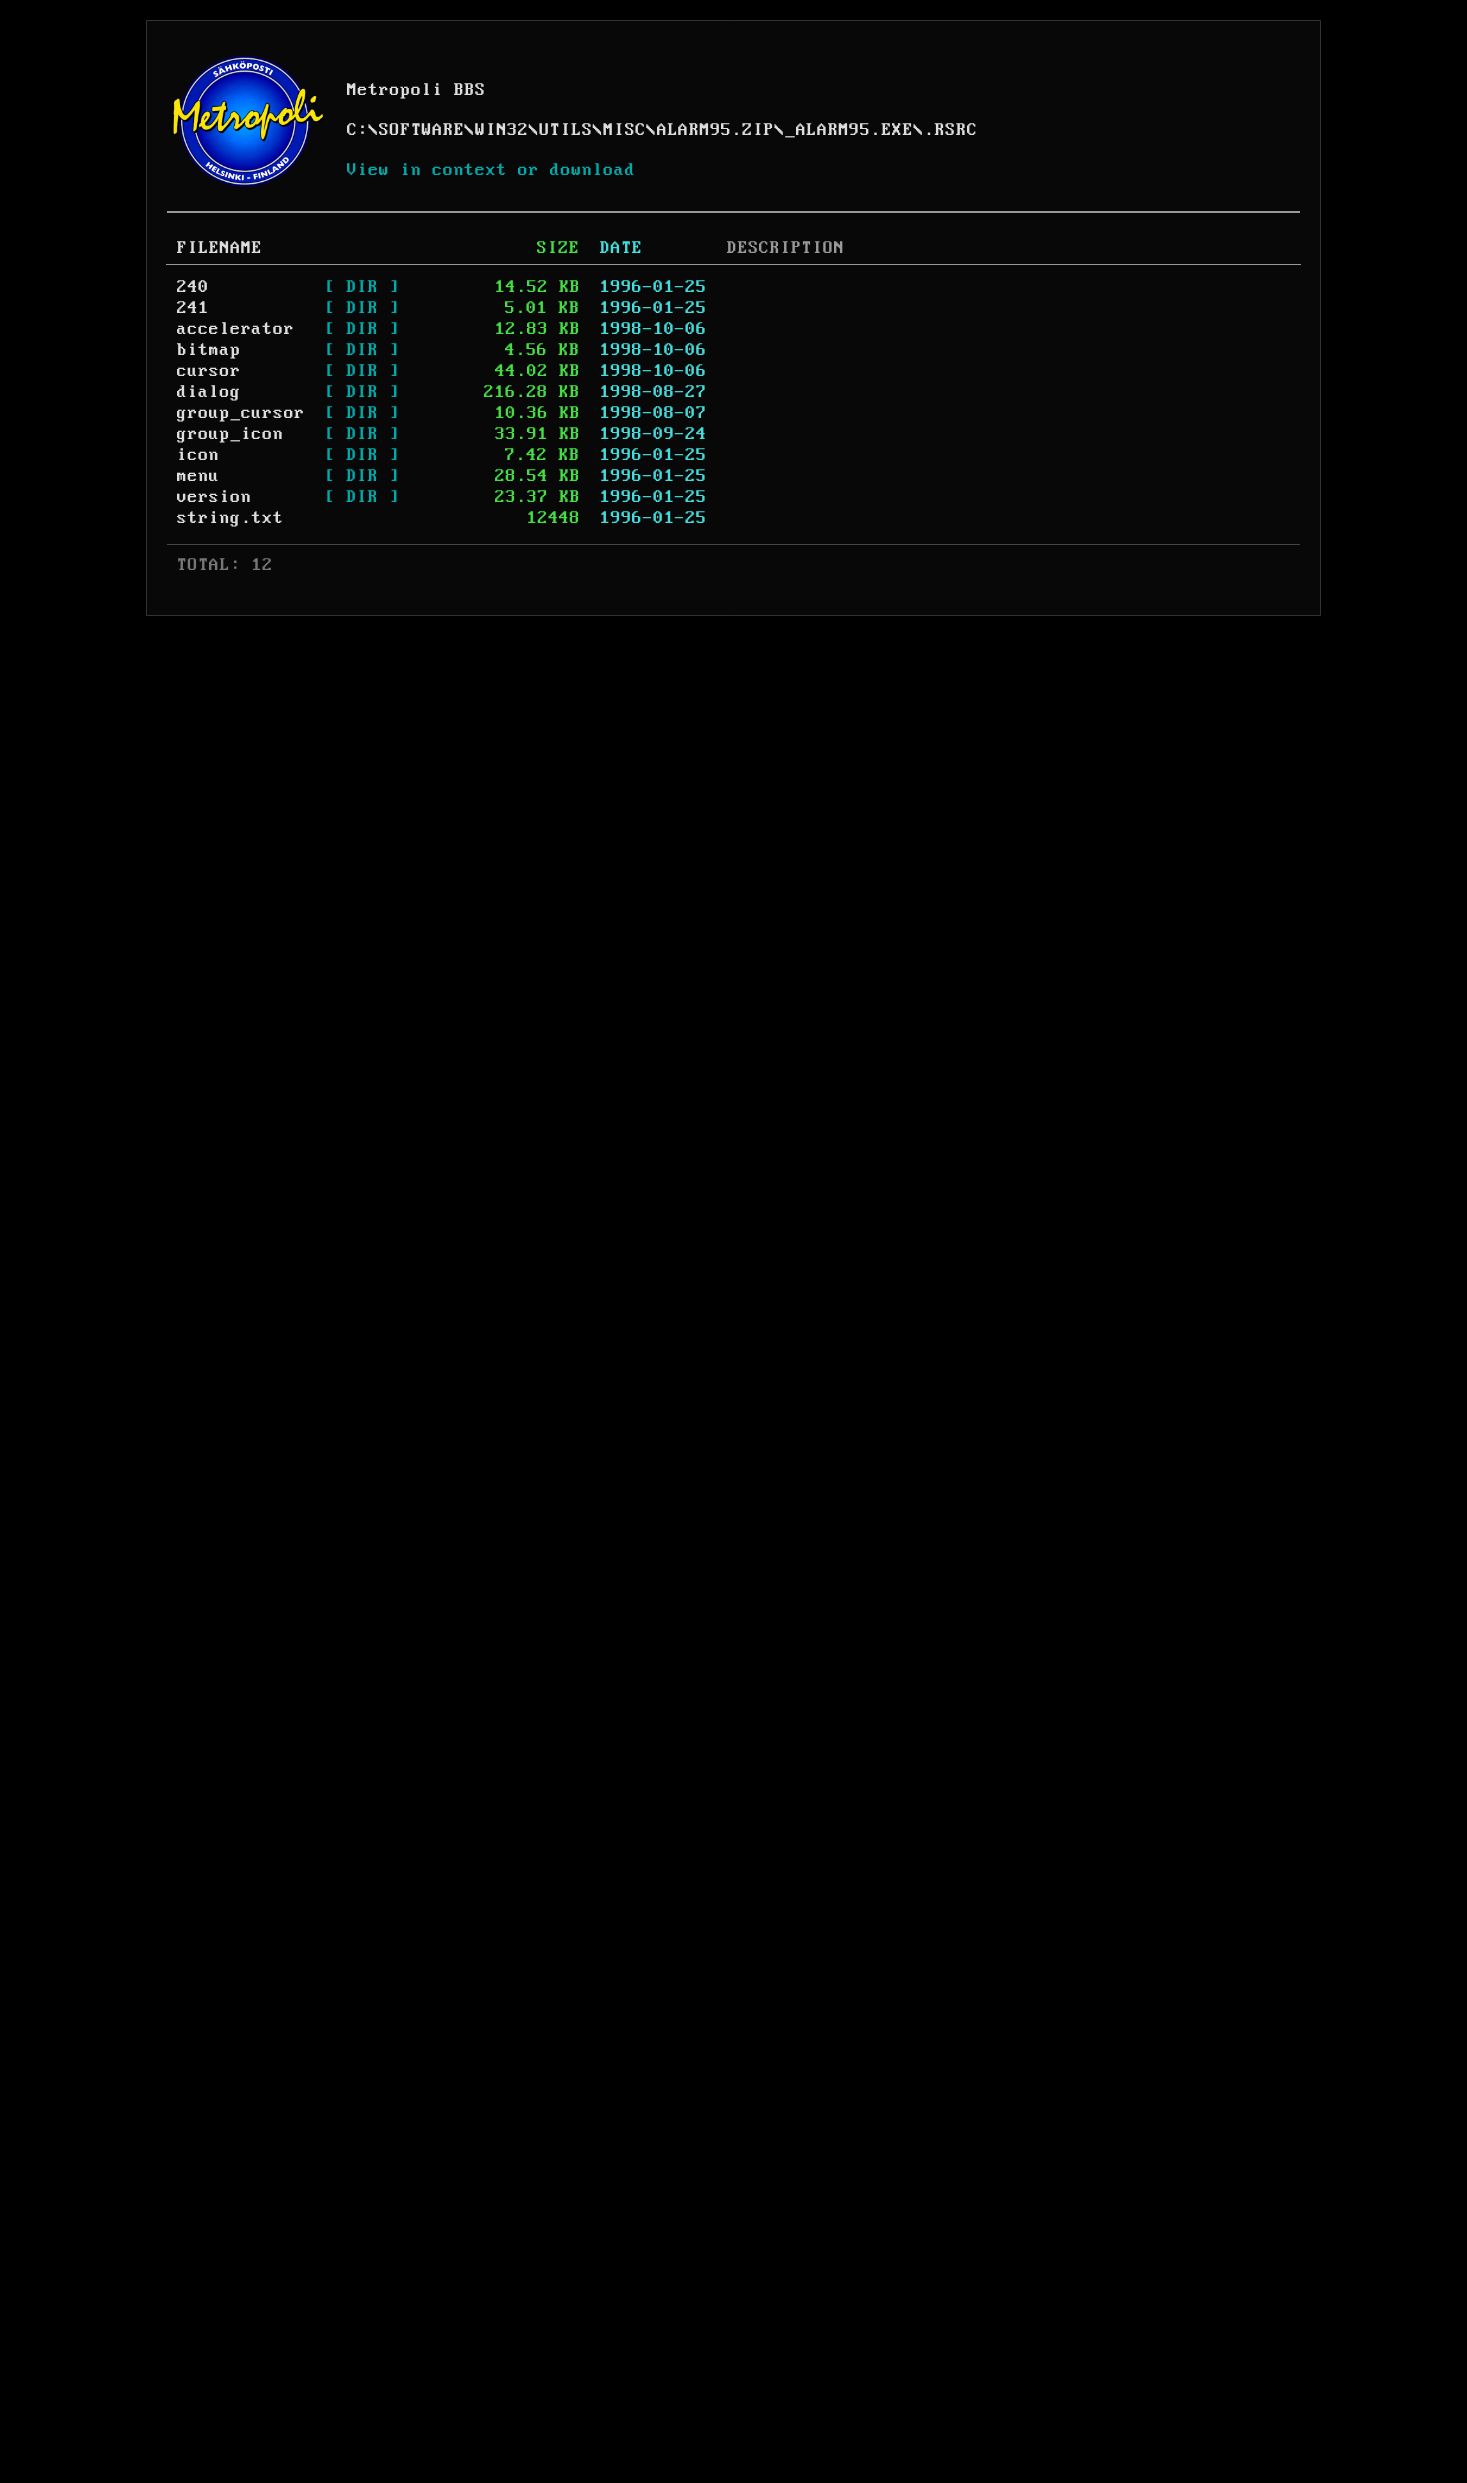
<!DOCTYPE html>
<meta charset="utf-8">
<style>body { margin: 0 } canvas { display: block }</style>
<canvas id="canvas" width="1467" height="2483"></canvas>
<img id="img1" src="images/1.png" hidden>
<script>
window.onload = function () {
    const canvas = document.getElementById('canvas');
    const context = canvas.getContext('2d');
    context.miterLimit = 4;
    context.fontKerning = 'normal';

    context.fillStyle = 'rgb(0, 0, 0)';
    context.fillRect(0, 0, 1467, 2483);
    context.fillStyle = 'rgb(8, 8, 8)';
    context.beginPath();
    context.rect(146.5, 20.5, 1174, 595);
    context.fill();
    context.strokeStyle = 'rgb(51, 51, 51)';
    context.stroke();
    context.fillStyle = 'rgb(153, 153, 153)';
    context.fillRect(167, 211, 1133, 2);
    context.drawImage(document.getElementById('img1'), 173, 55, 151, 132);
    context.fillRect(166, 264, 1135, 1);
    context.fillStyle = 'rgb(68, 68, 68)';
    context.fillRect(167, 544, 1133, 1);
    context.font = '19px "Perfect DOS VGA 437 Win"';
    context.fillStyle = 'rgb(221, 221, 221)';
    context.fillText('Metropoli BBS', 347, 95);
    context.fillText('C:\\SOFTWARE\\WIN32\\UTILS\\MISC\\ALARM95.ZIP\\_ALARM95.EXE\\.RSRC', 347, 135);
    context.fillStyle = 'rgb(0, 170, 170)';
    context.fillText('View in context or download', 347, 175);
    context.fillStyle = 'rgb(221, 221, 221)';
    context.fillText('FILENAME', 177, 253);
    context.fillStyle = 'rgb(68, 221, 68)';
    context.fillText('SIZE', 537, 253);
    context.fillStyle = 'rgb(68, 221, 221)';
    context.fillText('DATE', 600, 253);
    context.fillStyle = 'rgb(153, 153, 153)';
    context.fillText('DESCRIPTION', 727, 253);
    context.fillStyle = 'rgb(221, 221, 221)';
    context.fillText('240', 177, 292);
    context.fillStyle = 'rgb(0, 170, 170)';
    context.fillText('[ DIR ]', 325, 292);
    context.fillStyle = 'rgb(68, 221, 68)';
    context.fillText('14.52 KB', 495, 292);
    context.fillStyle = 'rgb(68, 221, 221)';
    context.fillText('1996-01-25', 600, 292);
    context.fillStyle = 'rgb(221, 221, 221)';
    context.fillText('241', 177, 313);
    context.fillStyle = 'rgb(0, 170, 170)';
    context.fillText('[ DIR ]', 325, 313);
    context.fillStyle = 'rgb(68, 221, 68)';
    context.fillText('5.01 KB', 505, 313);
    context.fillStyle = 'rgb(68, 221, 221)';
    context.fillText('1996-01-25', 600, 313);
    context.fillStyle = 'rgb(221, 221, 221)';
    context.fillText('accelerator', 177, 334);
    context.fillStyle = 'rgb(0, 170, 170)';
    context.fillText('[ DIR ]', 325, 334);
    context.fillStyle = 'rgb(68, 221, 68)';
    context.fillText('12.83 KB', 495, 334);
    context.fillStyle = 'rgb(68, 221, 221)';
    context.fillText('1998-10-06', 600, 334);
    context.fillStyle = 'rgb(221, 221, 221)';
    context.fillText('bitmap', 177, 355);
    context.fillStyle = 'rgb(0, 170, 170)';
    context.fillText('[ DIR ]', 325, 355);
    context.fillStyle = 'rgb(68, 221, 68)';
    context.fillText('4.56 KB', 505, 355);
    context.fillStyle = 'rgb(68, 221, 221)';
    context.fillText('1998-10-06', 600, 355);
    context.fillStyle = 'rgb(221, 221, 221)';
    context.fillText('cursor', 177, 376);
    context.fillStyle = 'rgb(0, 170, 170)';
    context.fillText('[ DIR ]', 325, 376);
    context.fillStyle = 'rgb(68, 221, 68)';
    context.fillText('44.02 KB', 495, 376);
    context.fillStyle = 'rgb(68, 221, 221)';
    context.fillText('1998-10-06', 600, 376);
    context.fillStyle = 'rgb(221, 221, 221)';
    context.fillText('dialog', 177, 397);
    context.fillStyle = 'rgb(0, 170, 170)';
    context.fillText('[ DIR ]', 325, 397);
    context.fillStyle = 'rgb(68, 221, 68)';
    context.fillText('216.28 KB', 484, 397);
    context.fillStyle = 'rgb(68, 221, 221)';
    context.fillText('1998-08-27', 600, 397);
    context.fillStyle = 'rgb(221, 221, 221)';
    context.fillText('group_cursor', 177, 418);
    context.fillStyle = 'rgb(0, 170, 170)';
    context.fillText('[ DIR ]', 325, 418);
    context.fillStyle = 'rgb(68, 221, 68)';
    context.fillText('10.36 KB', 495, 418);
    context.fillStyle = 'rgb(68, 221, 221)';
    context.fillText('1998-08-07', 600, 418);
    context.fillStyle = 'rgb(221, 221, 221)';
    context.fillText('group_icon', 177, 439);
    context.fillStyle = 'rgb(0, 170, 170)';
    context.fillText('[ DIR ]', 325, 439);
    context.fillStyle = 'rgb(68, 221, 68)';
    context.fillText('33.91 KB', 495, 439);
    context.fillStyle = 'rgb(68, 221, 221)';
    context.fillText('1998-09-24', 600, 439);
    context.fillStyle = 'rgb(221, 221, 221)';
    context.fillText('icon', 177, 460);
    context.fillStyle = 'rgb(0, 170, 170)';
    context.fillText('[ DIR ]', 325, 460);
    context.fillStyle = 'rgb(68, 221, 68)';
    context.fillText('7.42 KB', 505, 460);
    context.fillStyle = 'rgb(68, 221, 221)';
    context.fillText('1996-01-25', 600, 460);
    context.fillStyle = 'rgb(221, 221, 221)';
    context.fillText('menu', 177, 481);
    context.fillStyle = 'rgb(0, 170, 170)';
    context.fillText('[ DIR ]', 325, 481);
    context.fillStyle = 'rgb(68, 221, 68)';
    context.fillText('28.54 KB', 495, 481);
    context.fillStyle = 'rgb(68, 221, 221)';
    context.fillText('1996-01-25', 600, 481);
    context.fillStyle = 'rgb(221, 221, 221)';
    context.fillText('version', 177, 502);
    context.fillStyle = 'rgb(0, 170, 170)';
    context.fillText('[ DIR ]', 325, 502);
    context.fillStyle = 'rgb(68, 221, 68)';
    context.fillText('23.37 KB', 495, 502);
    context.fillStyle = 'rgb(68, 221, 221)';
    context.fillText('1996-01-25', 600, 502);
    context.fillStyle = 'rgb(221, 221, 221)';
    context.fillText('string.txt', 177, 523);
    context.fillStyle = 'rgb(68, 221, 68)';
    context.fillText('12448', 527, 523);
    context.fillStyle = 'rgb(68, 221, 221)';
    context.fillText('1996-01-25', 600, 523);
    context.fillStyle = 'rgb(119, 119, 119)';
    context.fillText('TOTAL: 12', 177, 570);
};
</script>
